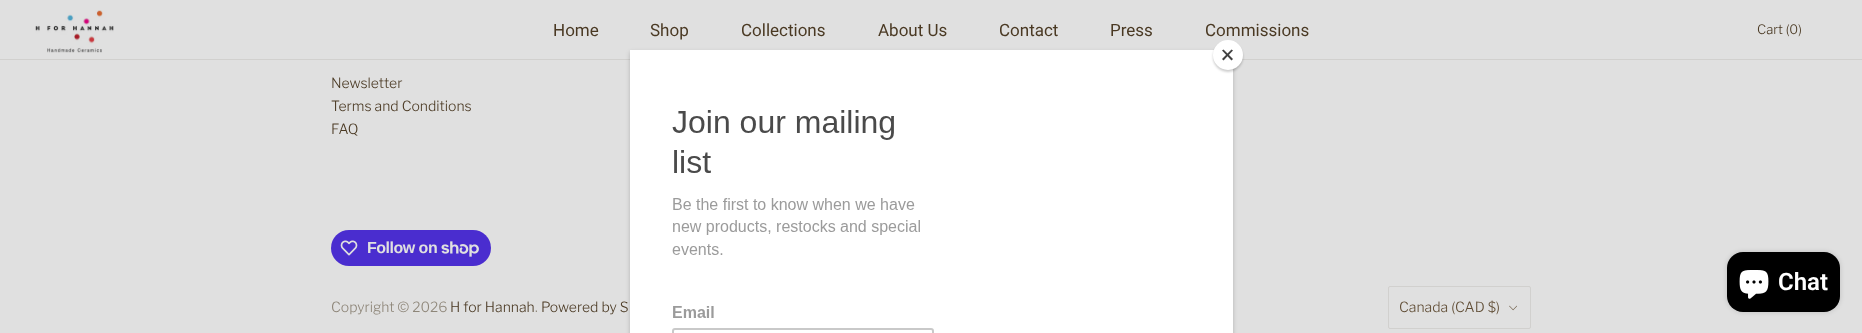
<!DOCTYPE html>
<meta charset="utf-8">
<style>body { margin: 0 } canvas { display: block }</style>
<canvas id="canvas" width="1862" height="333"></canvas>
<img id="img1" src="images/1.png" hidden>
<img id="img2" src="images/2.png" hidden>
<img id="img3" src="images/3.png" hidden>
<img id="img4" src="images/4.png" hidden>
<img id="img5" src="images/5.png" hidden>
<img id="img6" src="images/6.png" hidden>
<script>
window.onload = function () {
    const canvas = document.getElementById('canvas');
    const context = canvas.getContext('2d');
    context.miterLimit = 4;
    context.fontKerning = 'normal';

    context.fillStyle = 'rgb(224, 224, 224)';
    context.fillRect(0, 0, 1862, 333);
    context.fillStyle = 'rgb(209, 208, 206)';
    context.fillRect(0, 59, 1862, 1);
    context.drawImage(document.getElementById('img1'), 35, 10, 79, 43);
    context.fillStyle = 'rgba(0, 0, 0, 0.2)';
    context.filter = 'blur(2px)';
    context.beginPath();
    context.rect(630, 52, 603, 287);
    context.fill();
    context.filter = 'none';
    context.drawImage(document.getElementById('img2'), 630, 50, 603, 283);
    context.filter = 'blur(1px)';
    context.beginPath();
    context.roundRect(1213, 42, 30, 30, 15);
    context.fill();
    context.filter = 'none';
    context.fillStyle = 'rgb(255, 255, 255)';
    context.beginPath();
    context.arc(1228, 55, 15, 0, 2 * Math.PI);
    context.fill();
    context.fillStyle = 'rgb(65, 65, 65)';
    context.beginPath();
    context.moveTo(1231.5, 49.5);
    context.lineTo(1233, 50.5);
    context.lineTo(1223.5, 60.5);
    context.lineTo(1222, 59);
    context.closePath();
    context.fill();
    context.beginPath();
    context.moveTo(1222, 50.5);
    context.lineTo(1223.5, 49.5);
    context.lineTo(1233, 59);
    context.lineTo(1231.5, 60.5);
    context.closePath();
    context.fill();
    context.fillStyle = 'rgb(74, 45, 207)';
    context.beginPath();
    context.roundRect(331, 230, 160, 36, 18);
    context.fill();
    context.drawImage(document.getElementById('img3'), 340, 240, 18, 16);
    context.drawImage(document.getElementById('img4'), 441, 241, 38, 16);
    context.beginPath();
    context.roundRect(1388.5, 286.5, 142, 42, 1.5);
    context.strokeStyle = 'rgb(209, 208, 206)';
    context.stroke();
    context.drawImage(document.getElementById('img5'), 1509, 305, 8, 6);
    context.fillStyle = 'rgba(0, 0, 0, 0.15)';
    context.filter = 'blur(2.5px)';
    context.beginPath();
    context.roundRect(1727, 252, 113, 60, 16);
    context.fill();
    context.filter = 'none';
    context.fillStyle = 'rgb(0, 0, 0)';
    context.beginPath();
    context.roundRect(1727, 252, 113, 60, 16);
    context.fill();
    context.drawImage(document.getElementById('img6'), 1739, 270, 30, 29);
    context.font = '17px Roboto';
    context.fillStyle = 'rgb(74, 57, 35)';
    context.fillText('Home', 553, 36);
    context.fillText('Shop', 650, 36);
    context.fillText('Collections', 741, 36);
    context.fillText('About Us', 878, 36);
    context.fillText('Contact', 999, 36);
    context.fillText('Press', 1110, 36);
    context.fillText('Commissions', 1205, 36);
    context.font = '300 13px Libre Franklin';
    context.fillText('Cart (0)', 1757, 34);
    context.font = '300 14px Libre Franklin';
    context.fillText('Newsletter', 331, 88);
    context.fillText('Terms and Conditions', 331, 111);
    context.fillText('FAQ', 331, 134);
    context.letterSpacing = '-0.5px';
    context.font = 'bold 16px Liberation Sans';
    context.fillStyle = 'rgb(224, 224, 224)';
    context.fillText('Follow on', 367, 253);
    context.letterSpacing = '0px';
    context.font = '300 14px Libre Franklin';
    context.fillStyle = 'rgb(142, 134, 121)';
    context.fillText('Copyright © 2026', 331, 312);
    context.fillStyle = 'rgb(74, 57, 35)';
    context.fillText('H for Hannah', 450, 312);
    context.fillStyle = 'rgb(142, 134, 121)';
    context.fillText('.', 535, 312);
    context.fillStyle = 'rgb(74, 57, 35)';
    context.fillText('Powered by S', 541, 312);
    context.fillStyle = 'rgb(96, 77, 53)';
    context.fillText('Canada (CAD $)', 1399, 312);
    context.font = '600 24px Roboto';
    context.fillStyle = 'rgb(255, 255, 255)';
    context.fillText('Chat', 1778, 290);
};
</script>
